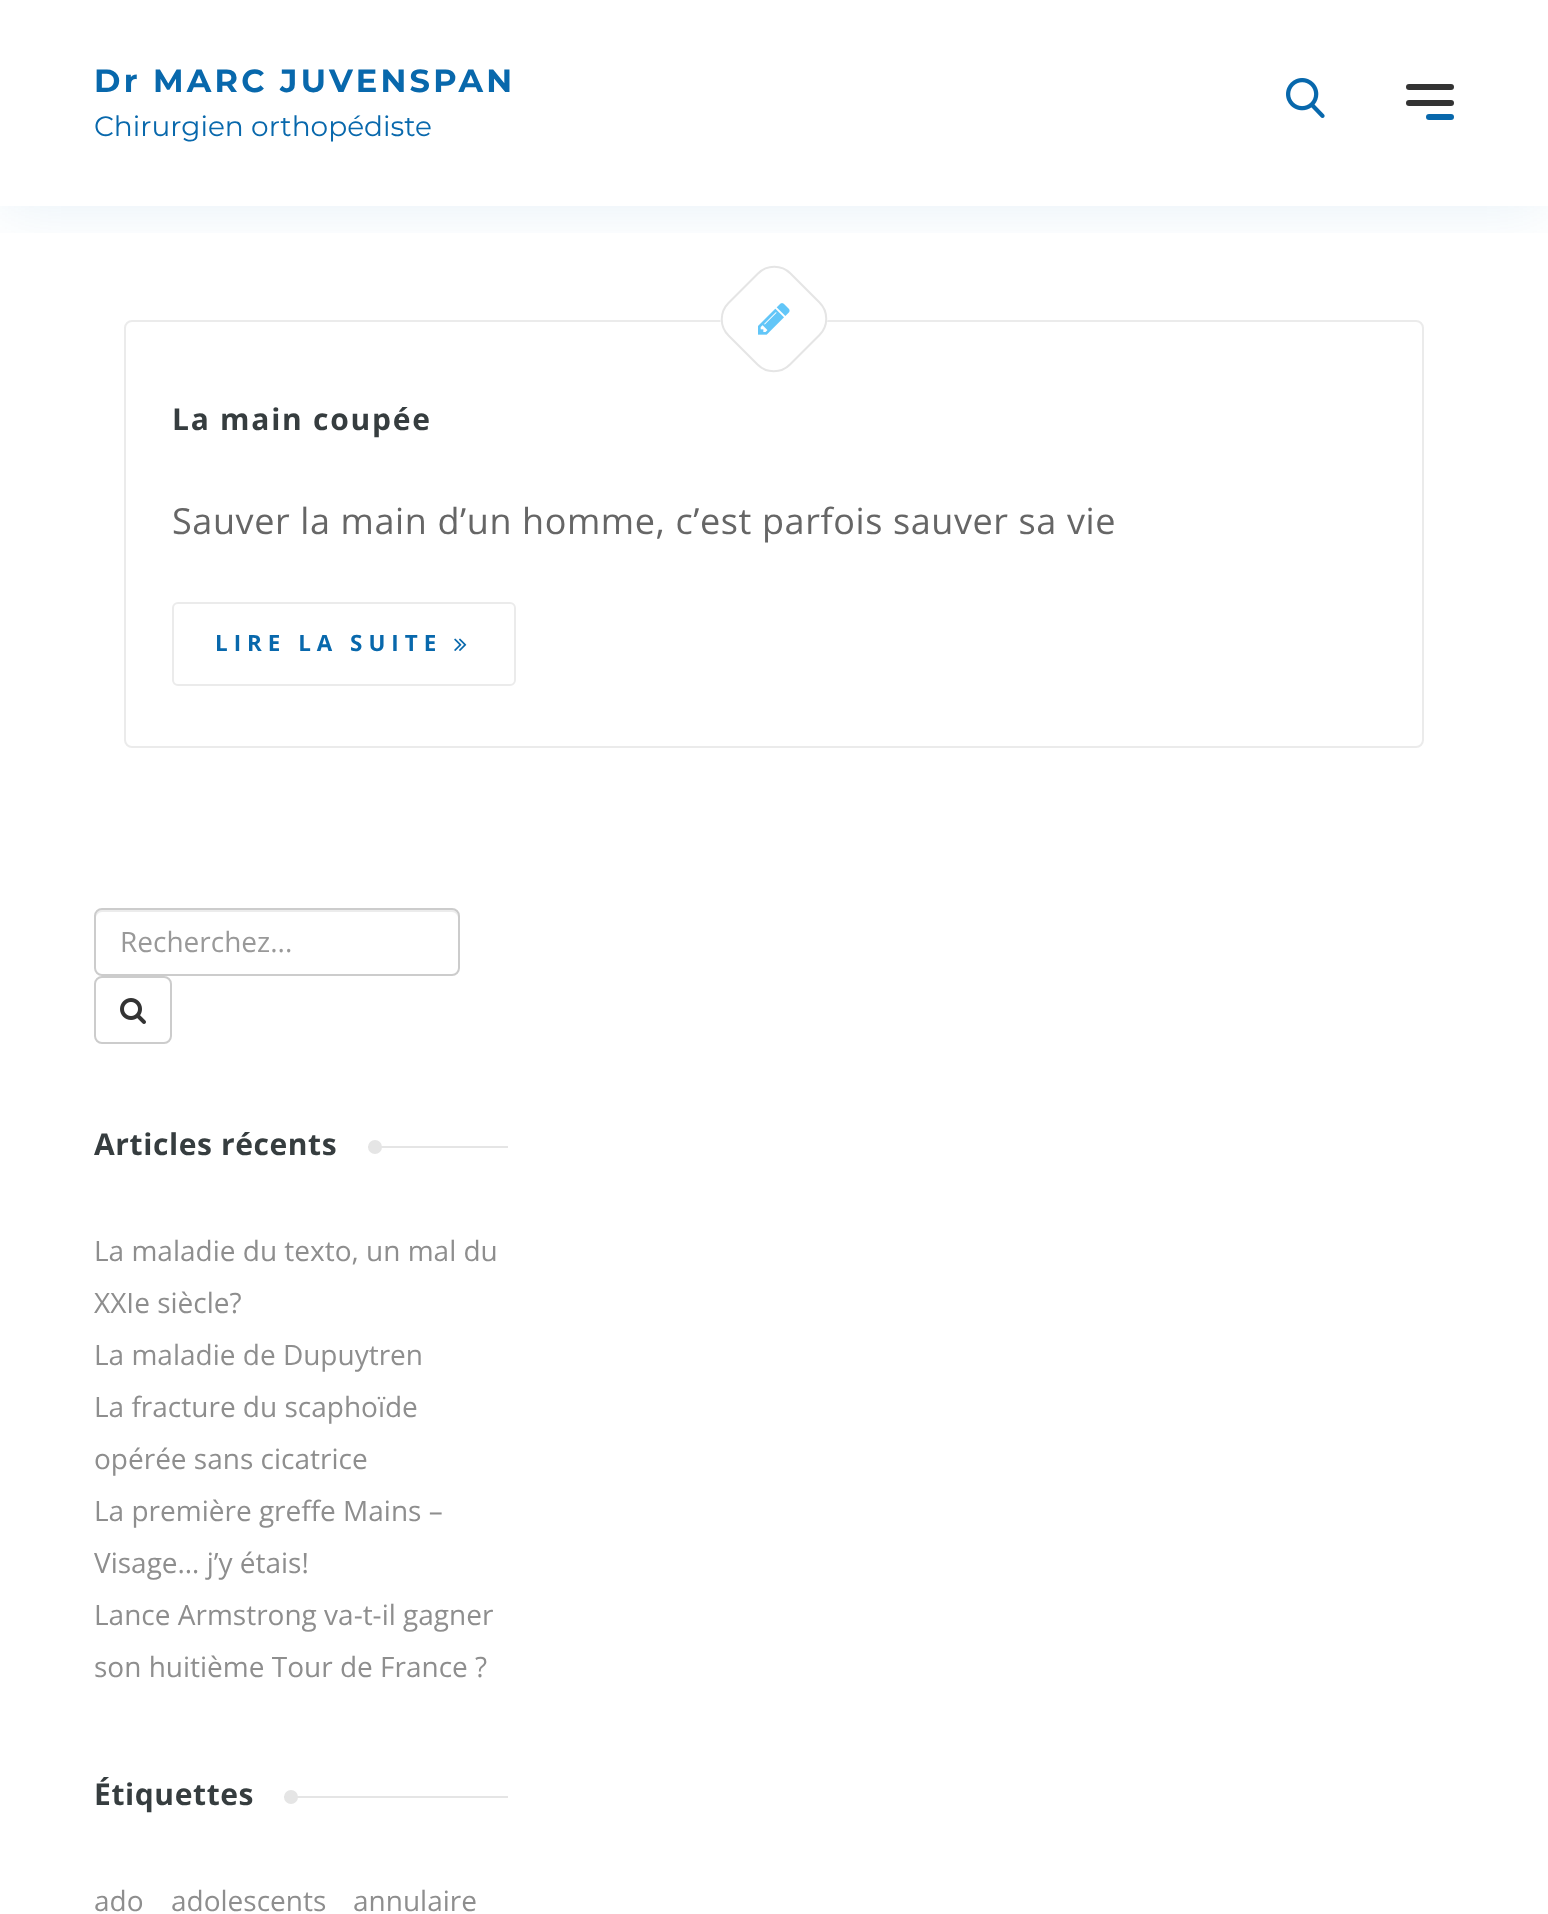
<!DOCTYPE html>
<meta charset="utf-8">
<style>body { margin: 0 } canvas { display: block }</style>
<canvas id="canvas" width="1548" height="1914"></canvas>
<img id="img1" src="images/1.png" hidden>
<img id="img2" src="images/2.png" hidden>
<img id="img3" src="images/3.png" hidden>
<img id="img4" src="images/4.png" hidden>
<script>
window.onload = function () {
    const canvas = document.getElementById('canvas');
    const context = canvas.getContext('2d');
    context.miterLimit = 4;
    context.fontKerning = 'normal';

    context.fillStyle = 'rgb(255, 255, 255)';
    context.fillRect(0, 0, 1548, 1914);
    context.beginPath();
    context.roundRect(125, 321, 1298, 426, 7);
    context.strokeStyle = 'rgb(235, 235, 235)';
    context.lineWidth = 2;
    context.stroke();
    context.beginPath();
    context.moveTo(791, 273);
    context.lineTo(820, 302);
    context.bezierCurveTo(830, 311, 830, 326, 820, 336);
    context.lineTo(791, 365);
    context.bezierCurveTo(781, 375, 766, 375, 757, 365);
    context.lineTo(728, 336);
    context.bezierCurveTo(718, 327, 718, 312, 728, 302);
    context.lineTo(757, 273);
    context.bezierCurveTo(767, 263, 782, 263, 791, 273);
    context.closePath();
    context.fill();
    context.beginPath();
    context.moveTo(790.5, 273.5);
    context.lineTo(819.5, 302.5);
    context.bezierCurveTo(828.5, 311.5, 828.5, 326, 819.5, 335);
    context.lineTo(790, 364.5);
    context.bezierCurveTo(781, 373.5, 766.5, 373.5, 757.5, 364.5);
    context.lineTo(728.5, 335.5);
    context.bezierCurveTo(719.5, 326.5, 719.5, 312, 728.5, 303);
    context.lineTo(758, 273.5);
    context.bezierCurveTo(767, 264.5, 781.5, 264.5, 790.5, 273.5);
    context.closePath();
    context.strokeStyle = 'rgb(229, 229, 229)';
    context.stroke();
    context.save();
    context.beginPath();
    context.rect(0, 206, 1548, 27);
    context.clip();
    context.fillStyle = 'rgba(8, 104, 172, 0.1)';
    context.filter = 'blur(32px)';
    context.beginPath();
    context.rect(0, 0, 1548, 206);
    context.fill();
    context.filter = 'none';
    context.restore();
    context.drawImage(document.getElementById('img1'), 1286, 78, 39, 40);
    context.fillStyle = 'rgb(51, 51, 51)';
    context.beginPath();
    context.roundRect(1406, 84, 48, 6, 3);
    context.fill();
    context.beginPath();
    context.roundRect(1406, 100, 48, 6, 3);
    context.fill();
    context.fillStyle = 'rgb(8, 104, 172)';
    context.beginPath();
    context.roundRect(1426, 114, 28, 6, 3);
    context.fill();
    context.drawImage(document.getElementById('img2'), 758, 303, 32, 32);
    context.beginPath();
    context.roundRect(173, 603, 342, 82, 5);
    context.strokeStyle = 'rgb(235, 235, 235)';
    context.stroke();
    context.drawImage(document.getElementById('img3'), 454, 638, 13, 13);
    context.fillStyle = 'rgb(236, 236, 236)';
    context.beginPath();
    context.moveTo(102, 912);
    context.lineTo(452, 912);
    context.bezierCurveTo(455, 912, 458, 915, 458, 918);
    context.lineTo(458, 916);
    context.bezierCurveTo(458, 913, 455, 910, 452, 910);
    context.lineTo(102, 910);
    context.bezierCurveTo(99, 910, 96, 913, 96, 916);
    context.lineTo(96, 918);
    context.bezierCurveTo(96, 915, 99, 912, 102, 912);
    context.closePath();
    context.fill();
    context.beginPath();
    context.roundRect(95, 909, 364, 66, 7);
    context.strokeStyle = 'rgb(204, 204, 204)';
    context.stroke();
    context.beginPath();
    context.roundRect(95, 977, 76, 66, 7);
    context.stroke();
    context.drawImage(document.getElementById('img4'), 120, 998, 26, 26);
    context.fillStyle = 'rgb(229, 229, 229)';
    context.fillRect(368, 1146, 140, 2);
    context.beginPath();
    context.arc(375, 1147, 7, 0, 2 * Math.PI);
    context.fill();
    context.fillRect(284, 1796, 224, 2);
    context.beginPath();
    context.arc(291, 1797, 7, 0, 2 * Math.PI);
    context.fill();
    context.letterSpacing = '3.25px';
    context.font = 'bold 32px Montserrat';
    context.fillStyle = 'rgb(8, 104, 172)';
    context.fillText('Dr MARC JUVENSPAN', 94, 92);
    context.letterSpacing = '0px';
    context.font = '28px Montserrat';
    context.fillText('Chirurgien orthopédiste', 94, 136);
    context.letterSpacing = '1.75px';
    context.font = 'bold 30px Open Sans';
    context.fillStyle = 'rgb(54, 61, 63)';
    context.fillText('La main coupée', 172, 430);
    context.letterSpacing = '0.6px';
    context.font = '36px Open Sans';
    context.fillStyle = 'rgb(102, 102, 102)';
    context.fillText('Sauver la main d’un homme, c’est parfois sauver sa vie', 172, 534);
    context.letterSpacing = '6px';
    context.font = 'bold 22.4px Open Sans';
    context.fillStyle = 'rgb(8, 104, 172)';
    context.fillText('LIRE LA SUITE', 215, 651);
    context.letterSpacing = '0px';
    context.font = '28px Open Sans';
    context.fillStyle = 'rgb(153, 153, 153)';
    context.fillText('Recherchez...', 120, 952);
    context.letterSpacing = '0.6px';
    context.font = 'bold 30px Open Sans';
    context.fillStyle = 'rgb(54, 61, 63)';
    context.fillText('Articles récents', 94, 1155);
    context.letterSpacing = '0px';
    context.font = '28px Open Sans';
    context.fillStyle = 'rgb(142, 142, 142)';
    context.fillText('La maladie du texto, un mal du', 94, 1261);
    context.fillText('XXIe siècle?', 94, 1313);
    context.fillText('La maladie de Dupuytren', 94, 1365);
    context.fillText('La fracture du scaphoïde', 94, 1417);
    context.fillText('opérée sans cicatrice', 94, 1469);
    context.fillText('La première greffe Mains –', 94, 1521);
    context.fillText('Visage… j’y étais!', 94, 1573);
    context.fillText('Lance Armstrong va-t-il gagner', 94, 1625);
    context.fillText('son huitième Tour de France ?', 94, 1677);
    context.letterSpacing = '0.6px';
    context.font = 'bold 30px Open Sans';
    context.fillStyle = 'rgb(54, 61, 63)';
    context.fillText('Étiquettes', 94, 1805);
    context.letterSpacing = '0px';
    context.font = '28px Open Sans';
    context.fillStyle = 'rgb(142, 142, 142)';
    context.fillText('ado', 94, 1911);
    context.fillText('adolescents', 171, 1911);
    context.fillText('annulaire', 353, 1911);
};
</script>
